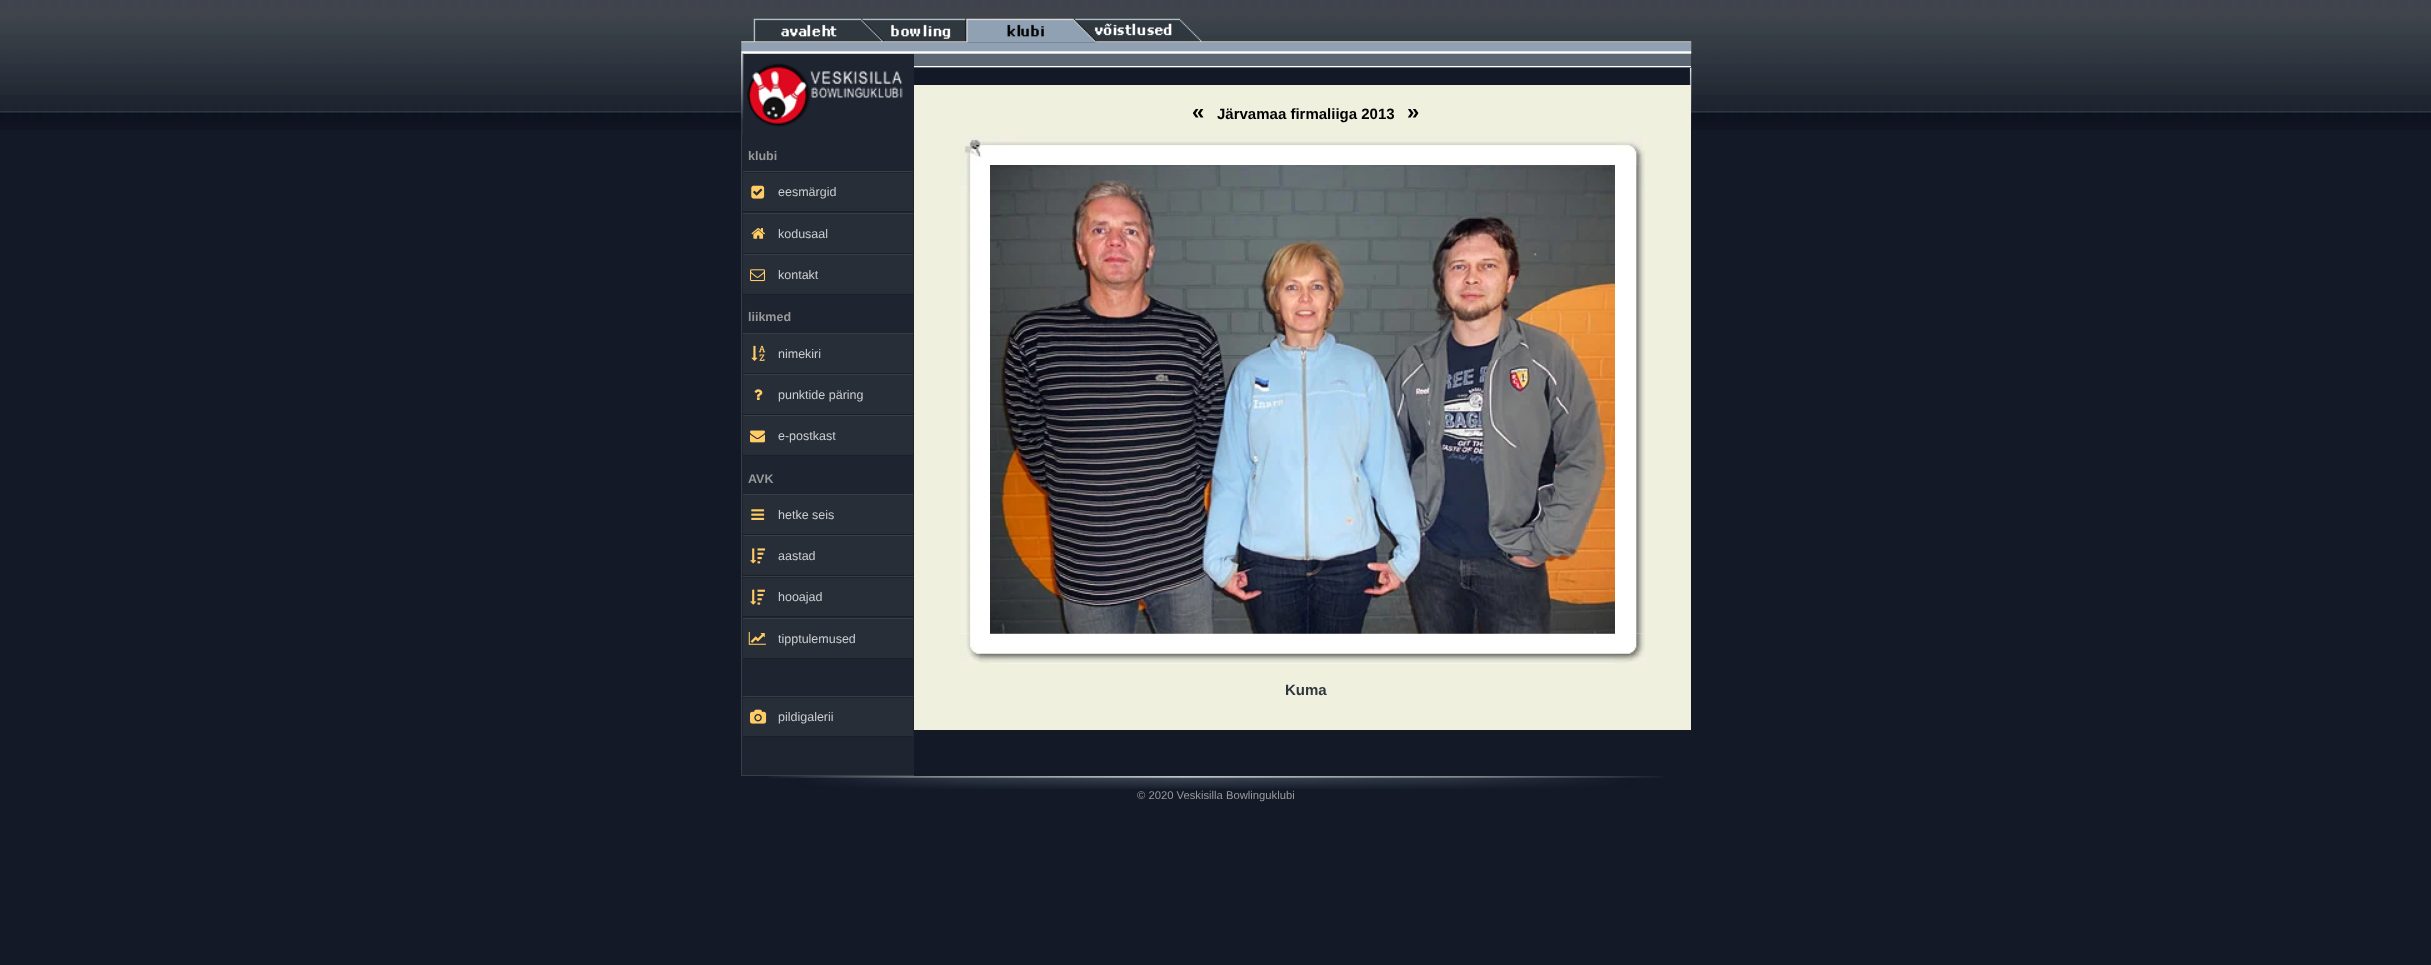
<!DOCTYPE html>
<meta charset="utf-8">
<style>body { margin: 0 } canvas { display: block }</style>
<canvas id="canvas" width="2431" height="965"></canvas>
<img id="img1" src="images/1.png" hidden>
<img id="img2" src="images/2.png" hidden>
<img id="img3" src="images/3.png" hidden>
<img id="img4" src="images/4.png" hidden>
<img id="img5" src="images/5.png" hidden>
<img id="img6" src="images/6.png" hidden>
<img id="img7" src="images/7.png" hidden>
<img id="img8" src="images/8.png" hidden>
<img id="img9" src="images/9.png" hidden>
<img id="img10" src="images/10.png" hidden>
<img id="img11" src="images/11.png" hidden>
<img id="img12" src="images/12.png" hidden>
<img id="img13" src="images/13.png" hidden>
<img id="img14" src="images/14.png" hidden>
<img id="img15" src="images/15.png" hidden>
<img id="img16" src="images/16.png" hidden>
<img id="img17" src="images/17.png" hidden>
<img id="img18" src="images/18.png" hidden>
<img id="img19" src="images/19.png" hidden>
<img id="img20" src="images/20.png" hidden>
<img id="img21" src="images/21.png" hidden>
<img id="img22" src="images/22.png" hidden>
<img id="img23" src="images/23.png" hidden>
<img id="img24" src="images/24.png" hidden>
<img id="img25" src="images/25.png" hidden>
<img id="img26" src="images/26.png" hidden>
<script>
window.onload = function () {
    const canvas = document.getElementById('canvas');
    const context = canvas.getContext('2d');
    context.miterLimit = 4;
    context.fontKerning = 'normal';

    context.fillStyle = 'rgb(19, 25, 39)';
    context.fillRect(0, 0, 2431, 965);
    context.drawImage(document.getElementById('img1'), 0, 0, 2431, 130);
    context.drawImage(document.getElementById('img2'), 741, 42, 951, 12);
    context.drawImage(document.getElementById('img3'), 741, 18, 951, 25);
    context.fillStyle = 'rgb(31, 36, 44)';
    context.fillRect(913, 134, 1, 642);
    context.fillStyle = 'rgb(57, 62, 68)';
    context.fillRect(741, 775, 173, 1);
    context.fillRect(741, 134, 1, 642);
    context.fillStyle = 'rgb(30, 37, 48)';
    context.fillRect(741, 54, 173, 81);
    context.drawImage(document.getElementById('img4'), 741, 53, 162, 82);
    context.fillStyle = 'rgb(19, 25, 39)';
    context.fillRect(914, 68, 777, 62);
    context.drawImage(document.getElementById('img5'), 1689, 67, 3, 63);
    context.fillStyle = 'rgb(92, 103, 115)';
    context.fillRect(914, 54, 777, 14);
    context.fillStyle = 'rgb(255, 255, 255)';
    context.fillRect(914, 66, 777, 1);
    context.fillStyle = 'rgb(30, 37, 48)';
    context.fillRect(742, 135, 171, 640);
    context.fillStyle = 'rgb(57, 62, 68)';
    context.fillRect(743, 171, 170, 1);
    context.fillStyle = 'rgb(28, 32, 38)';
    context.fillRect(743, 211, 170, 1);
    context.fillStyle = 'rgb(39, 46, 56)';
    context.fillRect(743, 173, 170, 38);
    context.drawImage(document.getElementById('img6'), 751, 185, 14, 14);
    context.fillStyle = 'rgb(57, 62, 68)';
    context.fillRect(743, 213, 170, 1);
    context.fillStyle = 'rgb(28, 32, 38)';
    context.fillRect(743, 253, 170, 1);
    context.fillStyle = 'rgb(39, 46, 56)';
    context.fillRect(743, 214, 170, 39);
    context.drawImage(document.getElementById('img7'), 751, 228, 14, 11);
    context.fillStyle = 'rgb(57, 62, 68)';
    context.fillRect(743, 254, 170, 1);
    context.fillStyle = 'rgb(28, 32, 38)';
    context.fillRect(743, 294, 170, 1);
    context.fillStyle = 'rgb(39, 46, 56)';
    context.fillRect(743, 255, 170, 39);
    context.drawImage(document.getElementById('img8'), 750, 269, 15, 13);
    context.fillStyle = 'rgb(57, 62, 68)';
    context.fillRect(743, 333, 170, 1);
    context.fillStyle = 'rgb(28, 32, 38)';
    context.fillRect(743, 373, 170, 1);
    context.fillStyle = 'rgb(39, 46, 56)';
    context.fillRect(743, 334, 170, 39);
    context.drawImage(document.getElementById('img9'), 751, 345, 15, 16);
    context.fillStyle = 'rgb(57, 62, 68)';
    context.fillRect(743, 374, 170, 1);
    context.fillStyle = 'rgb(28, 32, 38)';
    context.fillRect(743, 414, 170, 1);
    context.fillStyle = 'rgb(39, 46, 56)';
    context.fillRect(743, 375, 170, 39);
    context.drawImage(document.getElementById('img10'), 754, 389, 9, 11);
    context.fillStyle = 'rgb(57, 62, 68)';
    context.fillRect(743, 415, 170, 1);
    context.fillStyle = 'rgb(28, 32, 38)';
    context.fillRect(743, 455, 170, 1);
    context.fillStyle = 'rgb(39, 46, 56)';
    context.fillRect(743, 416, 170, 39);
    context.drawImage(document.getElementById('img11'), 750, 430, 15, 13);
    context.fillStyle = 'rgb(57, 62, 68)';
    context.fillRect(743, 494, 170, 1);
    context.fillStyle = 'rgb(28, 32, 38)';
    context.fillRect(743, 534, 170, 1);
    context.fillStyle = 'rgb(39, 46, 56)';
    context.fillRect(743, 495, 170, 39);
    context.drawImage(document.getElementById('img12'), 751, 509, 14, 11);
    context.fillStyle = 'rgb(57, 62, 68)';
    context.fillRect(743, 535, 170, 1);
    context.fillStyle = 'rgb(28, 32, 38)';
    context.fillRect(743, 575, 170, 1);
    context.fillStyle = 'rgb(39, 46, 56)';
    context.fillRect(743, 536, 170, 39);
    context.drawImage(document.getElementById('img13'), 750, 548, 15, 16);
    context.fillStyle = 'rgb(57, 62, 68)';
    context.fillRect(743, 576, 170, 1);
    context.fillStyle = 'rgb(28, 32, 38)';
    context.fillRect(743, 616, 170, 1);
    context.fillStyle = 'rgb(39, 46, 56)';
    context.fillRect(743, 578, 170, 38);
    context.drawImage(document.getElementById('img14'), 750, 589, 15, 16);
    context.fillStyle = 'rgb(57, 62, 68)';
    context.fillRect(743, 618, 170, 1);
    context.fillStyle = 'rgb(28, 32, 38)';
    context.fillRect(743, 658, 170, 1);
    context.fillStyle = 'rgb(39, 46, 56)';
    context.fillRect(743, 619, 170, 39);
    context.drawImage(document.getElementById('img15'), 748, 631, 18, 14);
    context.fillStyle = 'rgb(57, 62, 68)';
    context.fillRect(743, 696, 170, 1);
    context.fillStyle = 'rgb(28, 32, 38)';
    context.fillRect(743, 736, 170, 1);
    context.fillStyle = 'rgb(39, 46, 56)';
    context.fillRect(743, 698, 170, 38);
    context.drawImage(document.getElementById('img16'), 750, 709, 17, 15);
    context.fillStyle = 'rgb(240, 240, 223)';
    context.fillRect(914, 85, 777, 645);
    context.drawImage(document.getElementById('img17'), 960, 135, 30, 30);
    context.fillStyle = 'rgb(255, 255, 255)';
    context.fillRect(990, 148, 625, 17);
    context.drawImage(document.getElementById('img18'), 990, 135, 625, 13);
    context.drawImage(document.getElementById('img19'), 1615, 135, 30, 30);
    context.fillRect(960, 165, 30, 469);
    context.drawImage(document.getElementById('img20'), 960, 165, 13, 469);
    context.drawImage(document.getElementById('img21'), 990, 165, 625, 469);
    context.fillRect(1615, 165, 30, 469);
    context.drawImage(document.getElementById('img22'), 1636, 165, 9, 469);
    context.drawImage(document.getElementById('img23'), 960, 634, 30, 30);
    context.fillRect(990, 634, 625, 30);
    context.drawImage(document.getElementById('img24'), 990, 653, 625, 11);
    context.drawImage(document.getElementById('img25'), 1615, 633, 30, 31);
    context.drawImage(document.getElementById('img26'), 767, 776, 897, 13);
    context.font = 'bold 12.5px Liberation Sans';
    context.fillStyle = 'rgb(153, 153, 153)';
    context.fillText('klubi', 748, 160);
    context.font = '12.5px Liberation Sans';
    context.fillStyle = 'rgb(203, 205, 207)';
    context.fillText('eesmärgid', 778, 196);
    context.fillText('kodusaal', 778, 238);
    context.fillText('kontakt', 778, 279);
    context.font = 'bold 12.5px Liberation Sans';
    context.fillStyle = 'rgb(153, 153, 153)';
    context.fillText('liikmed', 748, 321);
    context.font = '12.5px Liberation Sans';
    context.fillStyle = 'rgb(203, 205, 207)';
    context.fillText('nimekiri', 778, 358);
    context.fillText('punktide päring', 778, 399);
    context.fillText('e-postkast', 778, 440);
    context.font = 'bold 12.5px Liberation Sans';
    context.fillStyle = 'rgb(153, 153, 153)';
    context.fillText('AVK', 748, 483);
    context.font = '12.5px Liberation Sans';
    context.fillStyle = 'rgb(203, 205, 207)';
    context.fillText('hetke seis', 778, 519);
    context.fillText('aastad', 778, 560);
    context.fillText('hooajad', 778, 601);
    context.fillText('tipptulemused', 778, 643);
    context.fillText('pildigalerii', 778, 721);
    context.font = 'bold 22px Liberation Sans';
    context.fillStyle = 'rgb(0, 0, 0)';
    context.fillText('«', 1192, 119);
    context.font = 'bold 15px Liberation Sans';
    context.fillText('Järvamaa firmaliiga 2013', 1217, 119);
    context.font = 'bold 22px Liberation Sans';
    context.fillText('»', 1407, 119);
    context.font = 'bold 15px Liberation Sans';
    context.fillStyle = 'rgb(47, 55, 63)';
    context.fillText('Kuma', 1285, 695);
    context.font = '11.25px Liberation Sans';
    context.fillStyle = 'rgb(153, 153, 153)';
    context.fillText('© 2020 Veskisilla Bowlinguklubi', 1137, 799);
};
</script>
